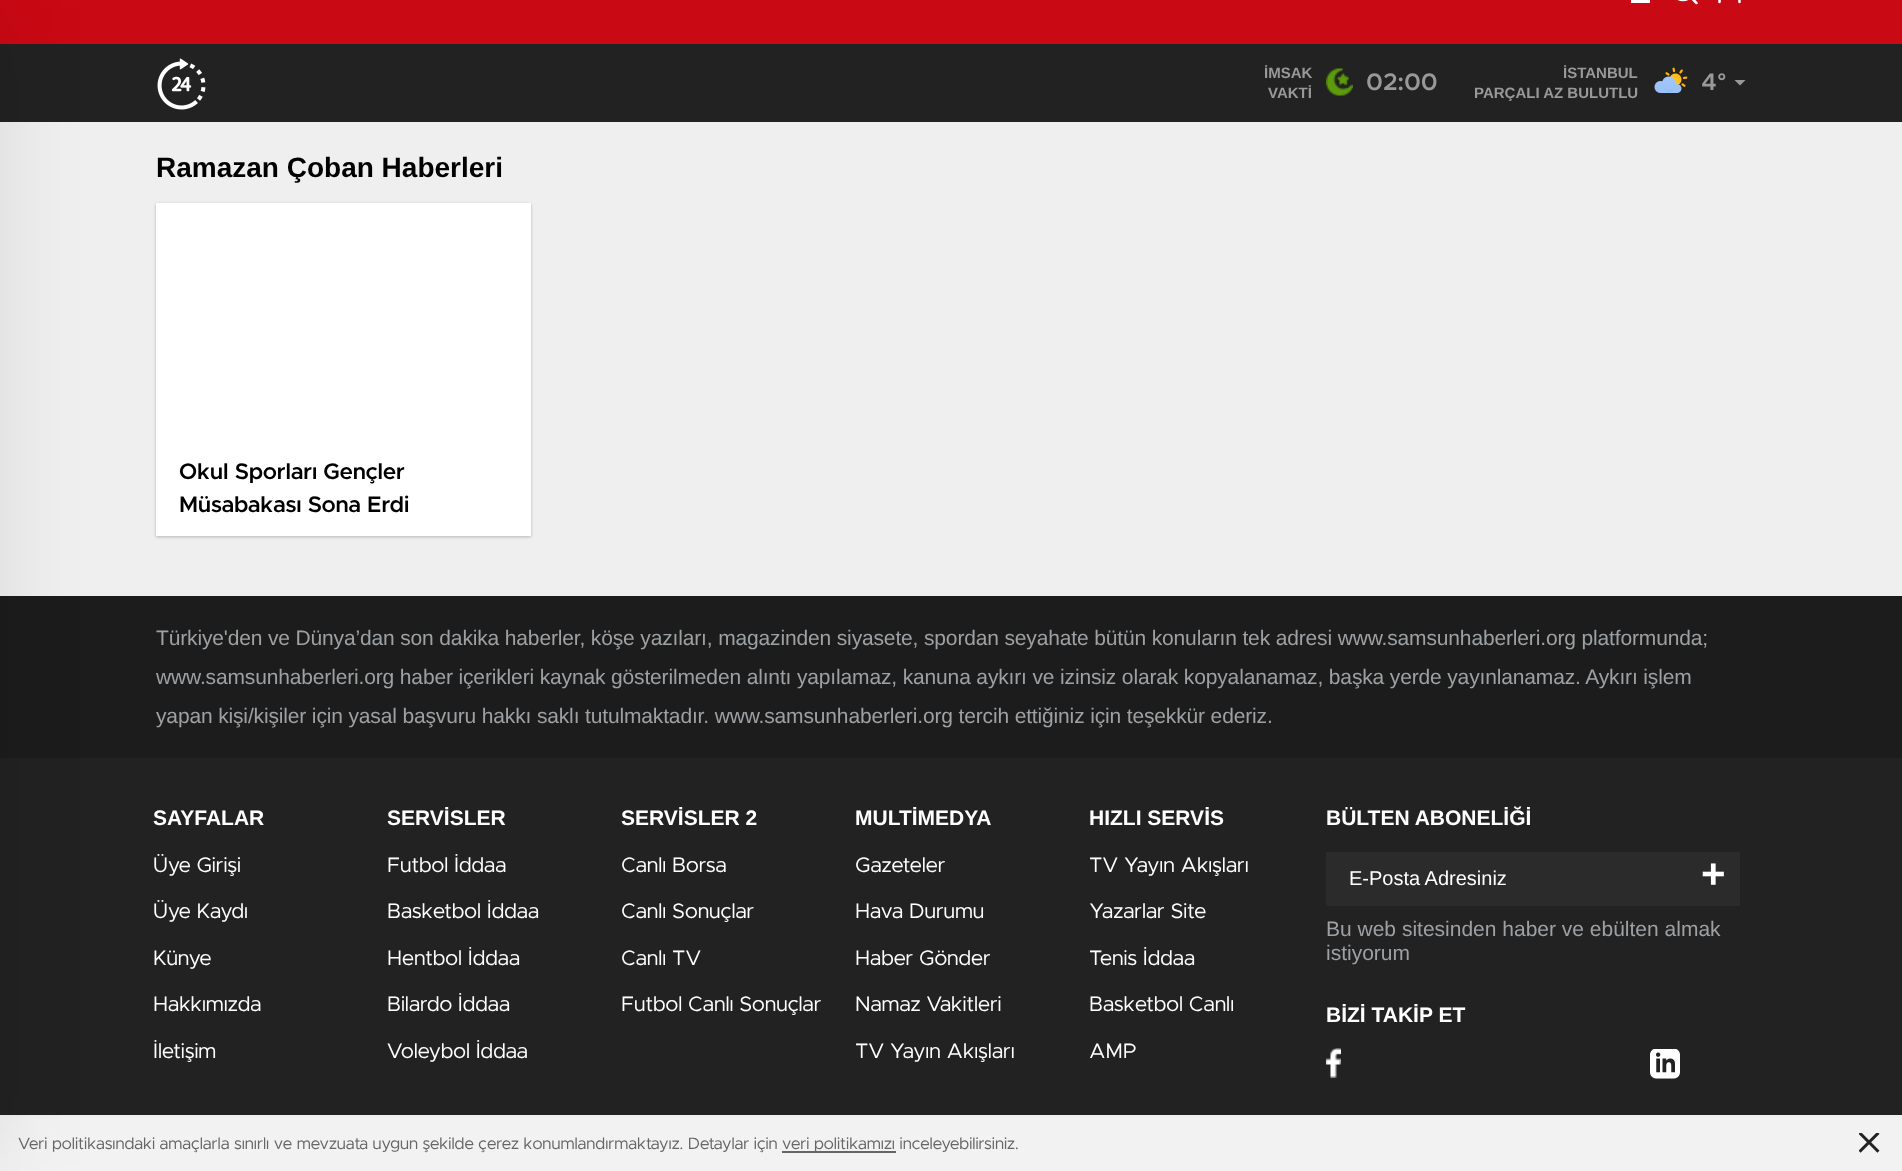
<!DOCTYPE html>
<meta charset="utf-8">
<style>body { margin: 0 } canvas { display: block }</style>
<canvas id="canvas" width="1902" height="1171"></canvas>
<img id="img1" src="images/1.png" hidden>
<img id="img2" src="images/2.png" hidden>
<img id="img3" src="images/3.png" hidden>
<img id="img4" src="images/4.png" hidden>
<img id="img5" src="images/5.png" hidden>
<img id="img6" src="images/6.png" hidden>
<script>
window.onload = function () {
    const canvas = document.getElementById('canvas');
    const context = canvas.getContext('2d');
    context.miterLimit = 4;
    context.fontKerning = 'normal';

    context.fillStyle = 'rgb(239, 239, 239)';
    context.fillRect(0, 0, 1902, 1171);
    context.fillStyle = 'rgb(201, 9, 20)';
    context.fillRect(0, 0, 1902, 44);
    context.fillStyle = 'rgb(34, 34, 34)';
    context.fillRect(0, 44, 1902, 78);
    context.fillRect(0, 758, 1902, 357);
    context.fillStyle = 'rgb(242, 242, 242)';
    context.fillRect(0, 1117, 1902, 54);
    context.fillStyle = 'rgb(28, 28, 28)';
    context.fillRect(0, 596, 1902, 162);
    context.fillStyle = 'rgba(0, 0, 0, 0.1)';
    context.filter = 'blur(45px)';
    context.beginPath();
    context.rect(-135, 8, 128, 1156);
    context.fill();
    context.filter = 'none';
    context.fillStyle = 'rgb(255, 255, 255)';
    context.fillRect(1631, 0, 19, 3);
    context.beginPath();
    context.moveTo(1683, 0);
    context.bezierCurveTo(1696.5, 0, 1696.5, -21, 1683, -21);
    context.bezierCurveTo(1669, -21, 1669, 0, 1683, 0);
    context.closePath();
    context.moveTo(1690.5, -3);
    context.lineTo(1696.5, 3);
    context.strokeStyle = 'rgb(255, 255, 255)';
    context.lineWidth = 2.5;
    context.lineCap = 'round';
    context.lineJoin = 'round';
    context.stroke();
    context.beginPath();
    context.moveTo(1739.5, 2);
    context.bezierCurveTo(1739.5, -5.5, 1736.5, -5, 1729.5, -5);
    context.bezierCurveTo(1722.5, -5, 1719.5, -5.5, 1719.5, 2);
    context.stroke();
    context.drawImage(document.getElementById('img1'), 157, 58, 49, 52);
    context.drawImage(document.getElementById('img2'), 1326, 68, 27, 28);
    context.drawImage(document.getElementById('img3'), 1654, 67, 34, 26);
    context.save();
    context.beginPath();
    context.rect(1734, 80, 12, 6);
    context.clip();
    context.fillStyle = 'rgb(153, 153, 153)';
    context.beginPath();
    context.moveTo(1740, 85.5);
    context.lineTo(1734, 79.5);
    context.lineTo(1746, 79.5);
    context.closePath();
    context.fill();
    context.restore();
    context.fillStyle = 'rgba(17, 21, 25, 0.27)';
    context.filter = 'blur(1.5px)';
    context.beginPath();
    context.rect(156, 204, 375, 333);
    context.fill();
    context.filter = 'none';
    context.fillStyle = 'rgb(255, 255, 255)';
    context.fillRect(156, 203, 375, 333);
    context.fillStyle = 'rgb(43, 43, 43)';
    context.fillRect(1326, 852, 414, 54);
    context.drawImage(document.getElementById('img4'), 1326, 1048, 15, 30);
    context.drawImage(document.getElementById('img5'), 1650, 1049, 30, 30);
    context.fillStyle = 'rgb(102, 102, 102)';
    context.fillRect(782, 1151, 114, 2);
    context.drawImage(document.getElementById('img6'), 1859, 1133, 21, 20);
    context.font = 'bold 15px Liberation Sans';
    context.fillStyle = 'rgb(153, 153, 153)';
    context.fillText('İMSAK', 1264, 78);
    context.fillText('VAKTİ', 1268, 98);
    context.font = '600 24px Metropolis';
    context.fillText('02:00', 1366, 90);
    context.font = 'bold 15px Liberation Sans';
    context.fillText('İSTANBUL', 1563, 78);
    context.fillText('PARÇALI AZ BULUTLU', 1474, 98);
    context.font = '600 24px Metropolis';
    context.fillText('4°', 1701, 90);
    context.font = 'bold 28px Liberation Sans';
    context.fillStyle = 'rgb(0, 0, 0)';
    context.fillText('Ramazan Çoban Haberleri', 156, 177);
    context.font = '600 22.5px Metropolis';
    context.fillText('Okul Sporları Gençler', 179, 479);
    context.fillText('Müsabakası Sona Erdi', 179, 512);
    context.letterSpacing = '-0.15px';
    context.font = '21px Liberation Sans';
    context.fillStyle = 'rgb(157, 161, 164)';
    context.fillText('Türkiye\'den ve Dünya’dan son dakika haberler, köşe yazıları, magazinden siyasete, spordan seyahate bütün konuların tek adresi www.samsunhaberleri.org platformunda;', 156, 645);
    context.fillText('www.samsunhaberleri.org haber içerikleri kaynak gösterilmeden alıntı yapılamaz, kanuna aykırı ve izinsiz olarak kopyalanamaz, başka yerde yayınlanamaz. Aykırı işlem', 156, 684);
    context.fillText('yapan kişi/kişiler için yasal başvuru hakkı saklı tutulmaktadır. www.samsunhaberleri.org tercih ettiğiniz için teşekkür ederiz.', 156, 723);
    context.letterSpacing = '0px';
    context.font = 'bold 21px Liberation Sans';
    context.fillStyle = 'rgb(255, 255, 255)';
    context.fillText('SAYFALAR', 153, 825);
    context.font = '21px Metropolis';
    context.fillText('Üye Girişi', 153, 872);
    context.fillText('Üye Kaydı', 153, 918);
    context.fillText('Künye', 153, 965);
    context.fillText('Hakkımızda', 153, 1011);
    context.fillText('İletişim', 153, 1058);
    context.font = 'bold 21px Liberation Sans';
    context.fillText('SERVİSLER', 387, 825);
    context.font = '21px Metropolis';
    context.fillText('Futbol İddaa', 387, 872);
    context.fillText('Basketbol İddaa', 387, 918);
    context.fillText('Hentbol İddaa', 387, 965);
    context.fillText('Bilardo İddaa', 387, 1011);
    context.fillText('Voleybol İddaa', 387, 1058);
    context.font = 'bold 21px Liberation Sans';
    context.fillText('SERVİSLER 2', 621, 825);
    context.font = '21px Metropolis';
    context.fillText('Canlı Borsa', 621, 872);
    context.fillText('Canlı Sonuçlar', 621, 918);
    context.fillText('Canlı TV', 621, 965);
    context.fillText('Futbol Canlı Sonuçlar', 621, 1011);
    context.font = 'bold 21px Liberation Sans';
    context.fillText('MULTİMEDYA', 855, 825);
    context.font = '21px Metropolis';
    context.fillText('Gazeteler', 855, 872);
    context.fillText('Hava Durumu', 855, 918);
    context.fillText('Haber Gönder', 855, 965);
    context.fillText('Namaz Vakitleri', 855, 1011);
    context.fillText('TV Yayın Akışları', 855, 1058);
    context.font = 'bold 21px Liberation Sans';
    context.fillText('HIZLI SERVİS', 1089, 825);
    context.font = '21px Metropolis';
    context.fillText('TV Yayın Akışları', 1089, 872);
    context.fillText('Yazarlar Site', 1089, 918);
    context.fillText('Tenis İddaa', 1089, 965);
    context.fillText('Basketbol Canlı', 1089, 1011);
    context.fillText('AMP', 1089, 1058);
    context.font = 'bold 21px Liberation Sans';
    context.fillText('BÜLTEN ABONELİĞİ', 1326, 825);
    context.font = '20px Liberation Sans';
    context.fillText('E-Posta Adresiniz', 1349, 885);
    context.font = 'bold 42px Liberation Sans';
    context.fillText('+', 1701, 888);
    context.font = '21px Liberation Sans';
    context.fillStyle = 'rgb(157, 161, 164)';
    context.fillText('Bu web sitesinden haber ve ebülten almak', 1326, 936);
    context.fillText('istiyorum', 1326, 960);
    context.font = 'bold 21px Liberation Sans';
    context.fillStyle = 'rgb(255, 255, 255)';
    context.fillText('BİZİ TAKİP ET', 1326, 1022);
    context.font = '16.5px Metropolis';
    context.fillStyle = 'rgb(102, 102, 102)';
    context.fillText('Veri politikasındaki amaçlarla sınırlı ve mevzuata uygun şekilde çerez konumlandırmaktayız. Detaylar için', 18, 1149);
    context.fillText('veri politikamızı inceleyebilirsiniz.', 782, 1149);
};
</script>
